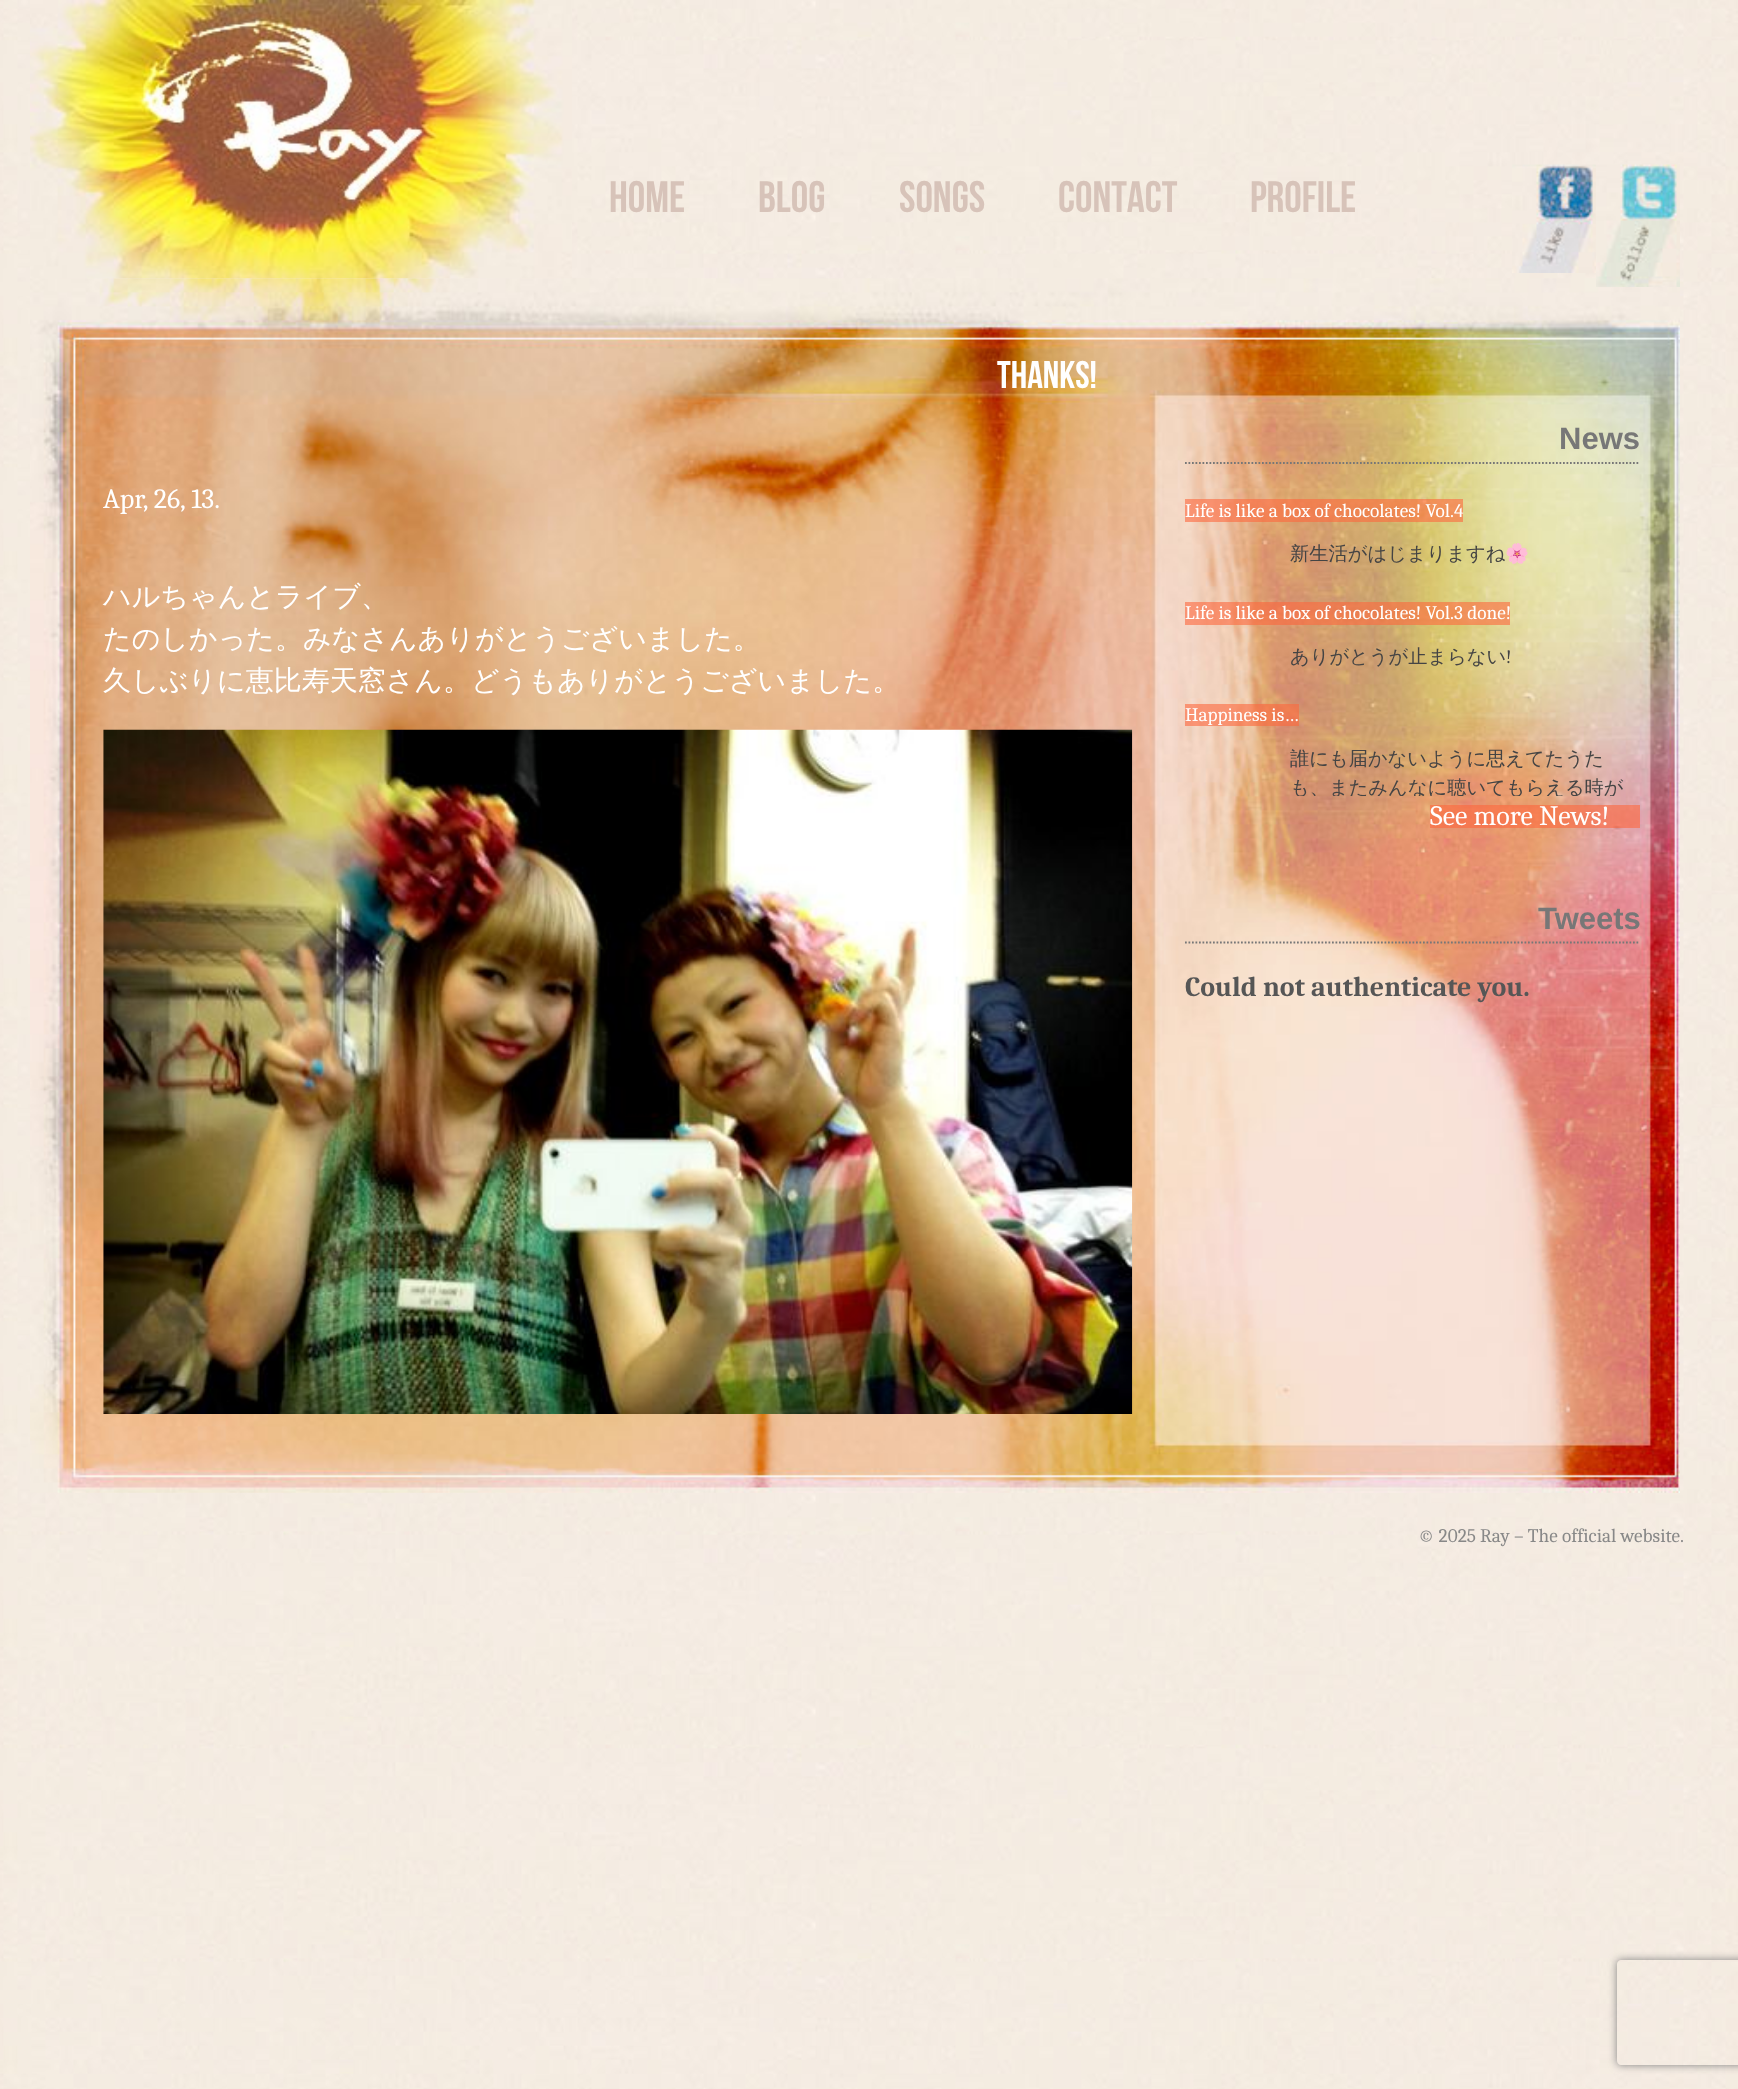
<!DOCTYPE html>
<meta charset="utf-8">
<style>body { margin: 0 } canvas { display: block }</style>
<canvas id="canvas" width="1738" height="2089"></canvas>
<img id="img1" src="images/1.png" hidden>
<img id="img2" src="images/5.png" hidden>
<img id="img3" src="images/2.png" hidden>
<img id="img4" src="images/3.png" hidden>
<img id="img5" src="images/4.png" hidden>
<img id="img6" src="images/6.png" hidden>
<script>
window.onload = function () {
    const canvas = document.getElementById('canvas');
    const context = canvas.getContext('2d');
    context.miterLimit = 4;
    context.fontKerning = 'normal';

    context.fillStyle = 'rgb(255, 255, 255)';
    context.fillRect(0, 0, 1738, 2089);
    context.drawImage(document.getElementById('img1'), 0, 0, 1738, 2089);
    context.drawImage(document.getElementById('img2'), 30, 278, 1650, 1215);
    context.drawImage(document.getElementById('img3'), 30, 0, 542, 279);
    context.drawImage(document.getElementById('img4'), 1512, 164, 84, 109);
    context.drawImage(document.getElementById('img5'), 1596, 164, 84, 123);
    context.drawImage(document.getElementById('img6'), 103, 729, 1030, 685);
    context.save();
    context.beginPath();
    context.moveTo(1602, 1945);
    context.lineTo(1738, 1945);
    context.lineTo(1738, 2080);
    context.lineTo(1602, 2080);
    context.closePath();
    context.moveTo(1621, 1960);
    context.lineTo(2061, 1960);
    context.bezierCurveTo(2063, 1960, 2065, 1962, 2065, 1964);
    context.lineTo(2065, 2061);
    context.bezierCurveTo(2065, 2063, 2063, 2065, 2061, 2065);
    context.lineTo(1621, 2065);
    context.bezierCurveTo(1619, 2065, 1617, 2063, 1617, 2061);
    context.lineTo(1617, 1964);
    context.bezierCurveTo(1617, 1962, 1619, 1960, 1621, 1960);
    context.closePath();
    context.clip('evenodd');
    context.fillStyle = 'rgb(128, 128, 128)';
    context.filter = 'blur(4.5px)';
    context.beginPath();
    context.roundRect(1617, 1960, 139, 105, 4);
    context.fill();
    context.filter = 'none';
    context.restore();
    context.beginPath();
    context.moveTo(1185, 463);
    context.lineTo(1640, 463);
    context.strokeStyle = 'rgb(119, 119, 119)';
    context.lineWidth = 1.8;
    context.setLineDash([1.75, 1.75]);
    context.stroke();
    context.fillStyle = 'rgba(253, 103, 61, 0.6)';
    context.fillRect(1185, 499, 278, 23);
    context.fillRect(1185, 602, 325, 23);
    context.fillRect(1185, 704, 114, 22);
    context.fillRect(1430, 805, 210, 23);
    context.beginPath();
    context.moveTo(1185, 942.5);
    context.lineTo(1640, 942.5);
    context.stroke();
    context.font = '44px Bebas Neue';
    context.fillStyle = 'rgb(215, 195, 185)';
    context.fillText('Home', 609, 212);
    context.fillText('Blog', 758, 212);
    context.fillText('Songs', 899, 212);
    context.fillText('Contact', 1058, 212);
    context.fillText('Profile', 1250, 212);
    context.font = '38.5px Bebas Neue';
    context.fillStyle = 'rgb(255, 255, 255)';
    context.fillText('thanks!', 997, 388);
    context.font = '28px Caladea';
    context.fillText('Apr, 26, 13.', 103, 508);
    context.font = '500 28px WenQuanYi Zen Hei';
    context.fillText('ハルちゃんとライブ、', 103, 606);
    context.fillText('たのしかった。みなさんありがとうございました。', 103, 648);
    context.fillText('久しぶりに恵比寿天窓さん。どうもありがとうございました。', 103, 690);
    context.font = 'bold 31px Liberation Sans';
    context.fillStyle = 'rgb(119, 119, 119)';
    context.fillText('News', 1559, 449);
    context.font = '19.25px Caladea';
    context.fillStyle = 'rgb(255, 255, 255)';
    context.fillText('Life is like a box of chocolates! Vol.4', 1185, 517);
    context.font = '500 19.25px WenQuanYi Zen Hei';
    context.fillStyle = 'rgb(68, 68, 68)';
    context.fillText('新生活がはじまりますね', 1290, 560);
    context.font = '19.25px Noto Color Emoji';
    context.fillText('🌸', 1505, 560);
    context.font = '19.25px Caladea';
    context.fillStyle = 'rgb(255, 255, 255)';
    context.fillText('Life is like a box of chocolates! Vol.3 done!', 1185, 619);
    context.font = '500 19.25px WenQuanYi Zen Hei';
    context.fillStyle = 'rgb(68, 68, 68)';
    context.fillText('ありがとうが止まらない', 1290, 663);
    context.font = '19.25px Caladea';
    context.fillText('!', 1506, 663);
    context.fillStyle = 'rgb(255, 255, 255)';
    context.fillText('Happiness is…', 1185, 721);
    context.font = '500 19.25px WenQuanYi Zen Hei';
    context.fillStyle = 'rgb(68, 68, 68)';
    context.fillText('誰にも届かないように思えてたうた', 1290, 765);
    context.save();
    context.beginPath();
    context.rect(1290, 726, 350, 70);
    context.clip();
    context.fillText('も、またみんなに聴いてもらえる時が', 1290, 794);
    context.restore();
    context.font = '28px Caladea';
    context.fillStyle = 'rgb(255, 255, 255)';
    context.fillText('See more News!', 1430, 825);
    context.font = 'bold 31px Liberation Sans';
    context.fillStyle = 'rgb(119, 119, 119)';
    context.fillText('Tweets', 1538, 929);
    context.font = 'bold 28px Caladea';
    context.fillStyle = 'rgb(86, 86, 86)';
    context.fillText('Could not authenticate you.', 1185, 996);
    context.font = '19.25px Caladea';
    context.fillStyle = 'rgb(136, 136, 136)';
    context.fillText('© 2025 Ray – The official website.', 1418, 1542);
};
</script>
